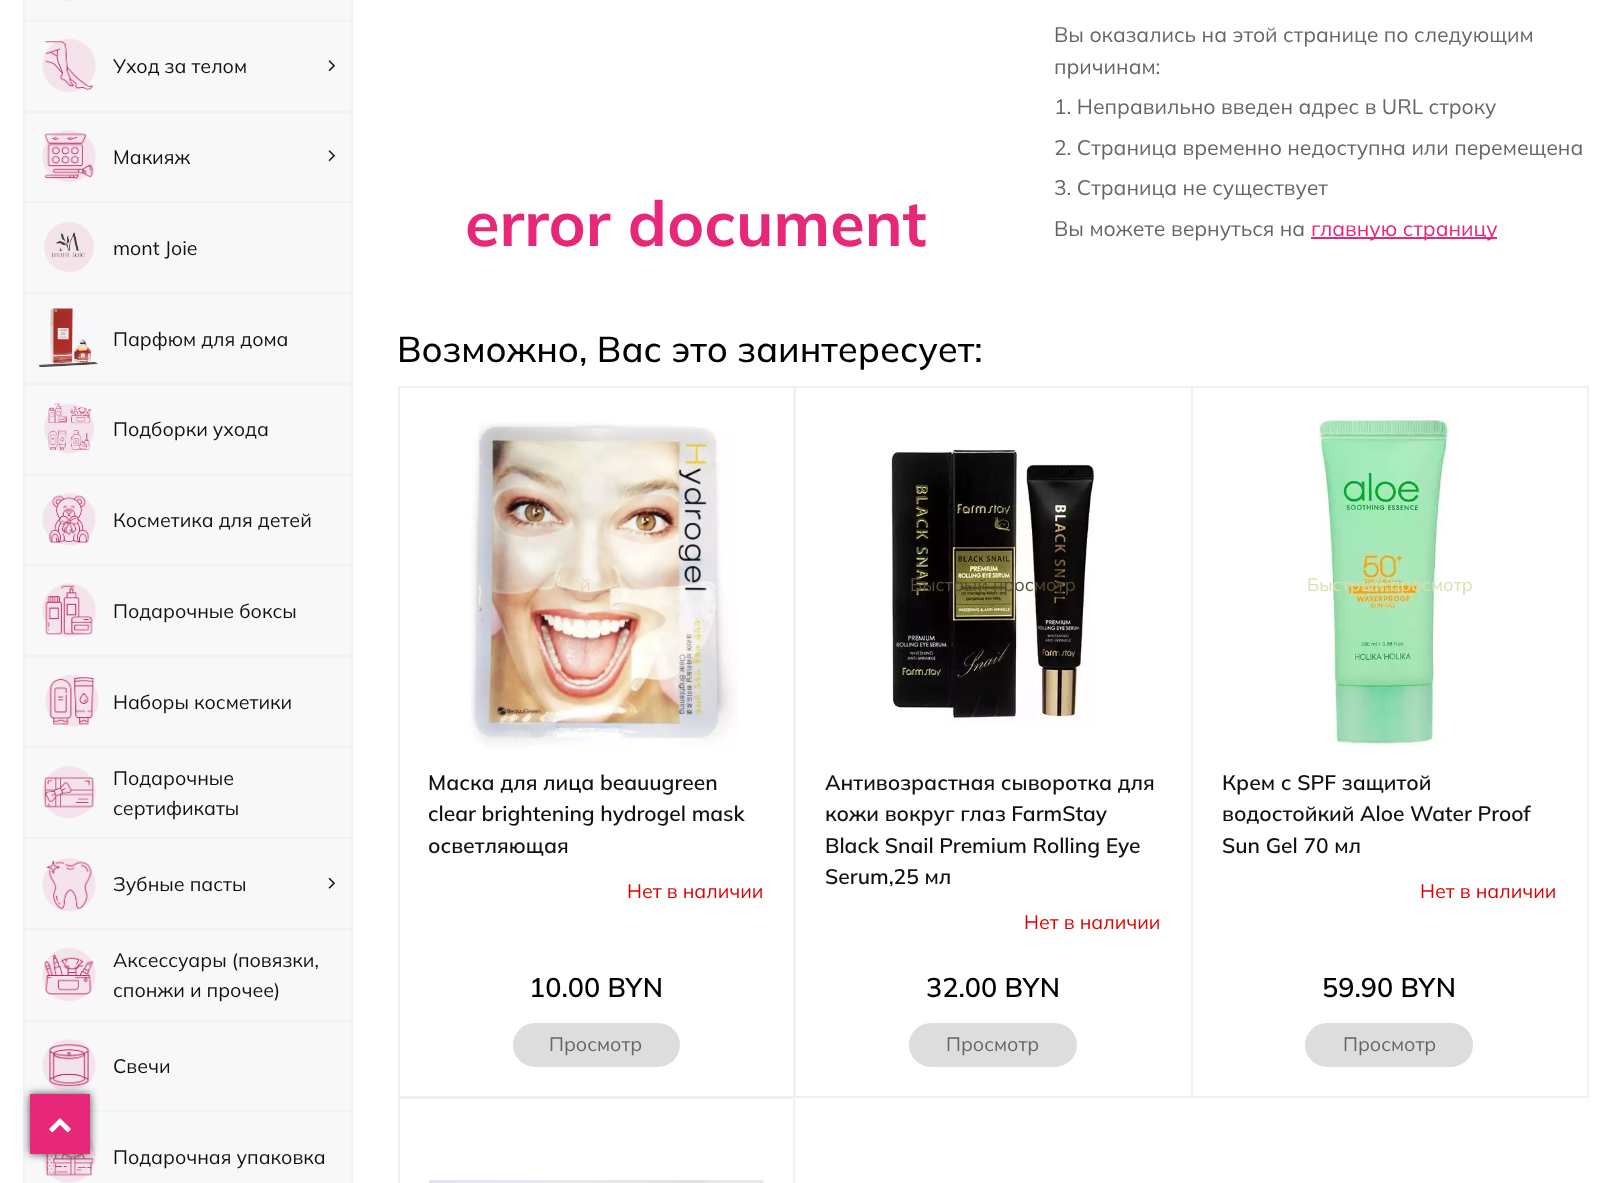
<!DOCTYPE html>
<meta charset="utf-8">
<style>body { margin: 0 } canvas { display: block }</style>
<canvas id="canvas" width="1613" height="1183"></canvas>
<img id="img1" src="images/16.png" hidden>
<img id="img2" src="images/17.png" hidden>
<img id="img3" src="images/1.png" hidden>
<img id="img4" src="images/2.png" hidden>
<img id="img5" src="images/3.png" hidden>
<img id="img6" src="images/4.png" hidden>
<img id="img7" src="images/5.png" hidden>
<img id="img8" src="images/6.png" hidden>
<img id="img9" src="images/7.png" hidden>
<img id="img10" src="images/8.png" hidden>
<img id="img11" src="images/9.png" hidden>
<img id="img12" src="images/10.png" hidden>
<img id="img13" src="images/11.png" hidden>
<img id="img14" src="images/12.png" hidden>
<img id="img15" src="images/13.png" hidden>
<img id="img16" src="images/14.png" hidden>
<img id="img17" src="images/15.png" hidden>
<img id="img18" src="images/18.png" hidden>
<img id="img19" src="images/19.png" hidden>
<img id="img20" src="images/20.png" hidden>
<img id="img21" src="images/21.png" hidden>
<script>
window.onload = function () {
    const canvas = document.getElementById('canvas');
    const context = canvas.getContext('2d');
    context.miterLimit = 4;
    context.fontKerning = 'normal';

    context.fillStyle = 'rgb(255, 255, 255)';
    context.fillRect(0, 0, 1613, 1183);
    context.fillStyle = 'rgb(248, 248, 249)';
    context.beginPath();
    context.rect(24, -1, 328, 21);
    context.fill();
    context.strokeStyle = 'rgb(242, 242, 242)';
    context.lineWidth = 2;
    context.stroke();
    context.beginPath();
    context.rect(24, 21, 328, 91);
    context.fill();
    context.stroke();
    context.beginPath();
    context.rect(24, 112, 328, 90);
    context.fill();
    context.stroke();
    context.beginPath();
    context.rect(24, 202, 328, 91);
    context.fill();
    context.stroke();
    context.beginPath();
    context.rect(24, 294, 328, 89);
    context.fill();
    context.stroke();
    context.beginPath();
    context.rect(24, 384, 328, 91);
    context.fill();
    context.stroke();
    context.beginPath();
    context.rect(24, 475, 328, 90);
    context.fill();
    context.stroke();
    context.beginPath();
    context.rect(24, 565, 328, 91);
    context.fill();
    context.stroke();
    context.beginPath();
    context.rect(24, 657, 328, 89);
    context.fill();
    context.stroke();
    context.beginPath();
    context.rect(24, 747, 328, 91);
    context.fill();
    context.stroke();
    context.beginPath();
    context.rect(24, 838, 328, 91);
    context.fill();
    context.stroke();
    context.beginPath();
    context.rect(24, 930, 328, 91);
    context.fill();
    context.stroke();
    context.beginPath();
    context.rect(24, 1021, 328, 90);
    context.fill();
    context.stroke();
    context.drawImage(document.getElementById('img1'), 42, 1039, 54, 53);
    context.beginPath();
    context.rect(24, 1111, 328, 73);
    context.fill();
    context.stroke();
    context.drawImage(document.getElementById('img2'), 42, 1139, 54, 44);
    context.fillStyle = 'rgba(0, 0, 0, 0.7)';
    context.filter = 'blur(4px)';
    context.beginPath();
    context.rect(30, 1094, 60, 60);
    context.fill();
    context.filter = 'none';
    context.fillStyle = 'rgb(231, 40, 120)';
    context.fillRect(30, 1094, 60, 60);
    context.drawImage(document.getElementById('img3'), 49, 1118, 22, 15);
    context.drawImage(document.getElementById('img4'), 63, 0, 12, 1);
    context.drawImage(document.getElementById('img5'), 42, 38, 54, 55);
    context.drawImage(document.getElementById('img6'), 328, 60, 7, 12);
    context.drawImage(document.getElementById('img7'), 42, 130, 54, 53);
    context.drawImage(document.getElementById('img6'), 328, 150, 7, 12);
    context.drawImage(document.getElementById('img8'), 44, 222, 50, 50);
    context.drawImage(document.getElementById('img9'), 39, 308, 59, 59);
    context.drawImage(document.getElementById('img10'), 44, 403, 50, 51);
    context.drawImage(document.getElementById('img11'), 42, 493, 54, 53);
    context.drawImage(document.getElementById('img12'), 42, 583, 54, 54);
    context.drawImage(document.getElementById('img13'), 45, 674, 54, 53);
    context.drawImage(document.getElementById('img14'), 42, 766, 54, 53);
    context.drawImage(document.getElementById('img15'), 42, 858, 54, 54);
    context.drawImage(document.getElementById('img16'), 328, 877, 7, 12);
    context.drawImage(document.getElementById('img17'), 42, 947, 54, 55);
    context.fillRect(1311, 237, 186, 2);
    context.strokeStyle = 'rgb(240, 240, 240)';
    context.strokeRect(399, 387, 395, 710);
    context.drawImage(document.getElementById('img18'), 470, 421, 268, 327);
    context.fillStyle = 'rgb(221, 221, 221)';
    context.beginPath();
    context.roundRect(513, 1023, 167, 44, 22);
    context.fill();
    context.strokeRect(795, 387, 397, 710);
    context.drawImage(document.getElementById('img19'), 890, 449, 204, 276);
    context.beginPath();
    context.roundRect(909, 1023, 168, 44, 22);
    context.fill();
    context.strokeRect(1192, 387, 396, 710);
    context.drawImage(document.getElementById('img20'), 1318, 416, 133, 331);
    context.beginPath();
    context.roundRect(1305, 1023, 168, 44, 22);
    context.fill();
    context.strokeRect(399, 1098, 395, 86);
    context.drawImage(document.getElementById('img21'), 429, 1180, 335, 3);
    context.font = '19.5px Mulish';
    context.fillStyle = 'rgb(17, 17, 17)';
    context.fillText('Уход за телом', 113, 73);
    context.fillText('Макияж', 113, 164);
    context.fillText('mont Joie', 113, 255);
    context.fillText('Парфюм для дома', 113, 346);
    context.fillText('Подборки ухода', 113, 436);
    context.fillText('Косметика для детей', 113, 527);
    context.fillText('Подарочные боксы', 113, 618);
    context.fillText('Наборы косметики', 113, 709);
    context.fillText('Подарочные', 113, 785);
    context.fillText('сертификаты', 113, 815);
    context.fillText('Зубные пасты', 113, 891);
    context.fillText('Аксесcуары (повязки,', 113, 967);
    context.fillText('спонжи и прочее)', 113, 997);
    context.fillText('Свечи', 113, 1073);
    context.fillText('Подарочная упаковка', 113, 1164);
    context.font = 'bold 63px Mulish';
    context.fillStyle = 'rgb(231, 40, 120)';
    context.fillText('error document', 465, 246);
    context.font = '21px Mulish';
    context.fillStyle = 'rgb(102, 102, 102)';
    context.fillText('Вы оказались на этой странице по следующим', 1054, 42);
    context.fillText('причинам:', 1054, 74);
    context.fillText('1. Неправильно введен адрес в URL строку', 1054, 114);
    context.fillText('2. Страница временно недоступна или перемещена', 1054, 155);
    context.fillText('3. Страница не существует', 1054, 195);
    context.fillText('Вы можете вернуться на', 1054, 236);
    context.fillStyle = 'rgb(231, 40, 120)';
    context.fillText('главную страницу', 1311, 236);
    context.font = '500 36px Mulish';
    context.fillStyle = 'rgb(0, 0, 0)';
    context.fillText('Возможно, Вас это заинтересует:', 397, 362);
    context.font = '18px Mulish';
    context.fillStyle = 'rgb(231, 214, 195)';
    context.fillText('й', 580, 591);
    context.font = '600 21px Mulish';
    context.fillStyle = 'rgb(17, 17, 17)';
    context.fillText('Маска для лица beauugreen', 428, 790);
    context.fillText('clear brightening hydrogel mask', 428, 821);
    context.fillText('осветляющая', 428, 853);
    context.font = '19.5px Mulish';
    context.fillStyle = 'rgb(223, 0, 0)';
    context.fillText('Нет в наличии', 627, 898);
    context.font = '600 27px Mulish';
    context.fillStyle = 'rgb(0, 0, 0)';
    context.fillText('10.00 BYN', 529, 997);
    context.font = '19.5px Mulish';
    context.fillStyle = 'rgb(102, 102, 102)';
    context.fillText('Просмотр', 549, 1051);
    context.font = '18px Mulish';
    context.fillStyle = 'rgb(84, 78, 54)';
    context.fillText('Быстрый просмотр', 910, 591);
    context.font = '600 21px Mulish';
    context.fillStyle = 'rgb(17, 17, 17)';
    context.fillText('Антивозрастная сыворотка для', 825, 790);
    context.fillText('кожи вокруг глаз FarmStay', 825, 821);
    context.fillText('Black Snail Premium Rolling Eye', 825, 853);
    context.fillText('Serum,25 мл', 825, 884);
    context.font = '19.5px Mulish';
    context.fillStyle = 'rgb(223, 0, 0)';
    context.fillText('Нет в наличии', 1024, 929);
    context.font = '600 27px Mulish';
    context.fillStyle = 'rgb(0, 0, 0)';
    context.fillText('32.00 BYN', 926, 997);
    context.font = '19.5px Mulish';
    context.fillStyle = 'rgb(102, 102, 102)';
    context.fillText('Просмотр', 946, 1051);
    context.font = '18px Mulish';
    context.fillStyle = 'rgb(218, 224, 174)';
    context.fillText('Быстрый просмотр', 1307, 591);
    context.font = '600 21px Mulish';
    context.fillStyle = 'rgb(17, 17, 17)';
    context.fillText('Крем с SPF защитой', 1222, 790);
    context.fillText('водостойкий Aloe Water Proof', 1222, 821);
    context.fillText('Sun Gel 70 мл', 1222, 853);
    context.font = '19.5px Mulish';
    context.fillStyle = 'rgb(223, 0, 0)';
    context.fillText('Нет в наличии', 1420, 898);
    context.font = '600 27px Mulish';
    context.fillStyle = 'rgb(0, 0, 0)';
    context.fillText('59.90 BYN', 1322, 997);
    context.font = '19.5px Mulish';
    context.fillStyle = 'rgb(102, 102, 102)';
    context.fillText('Просмотр', 1343, 1051);
};
</script>
